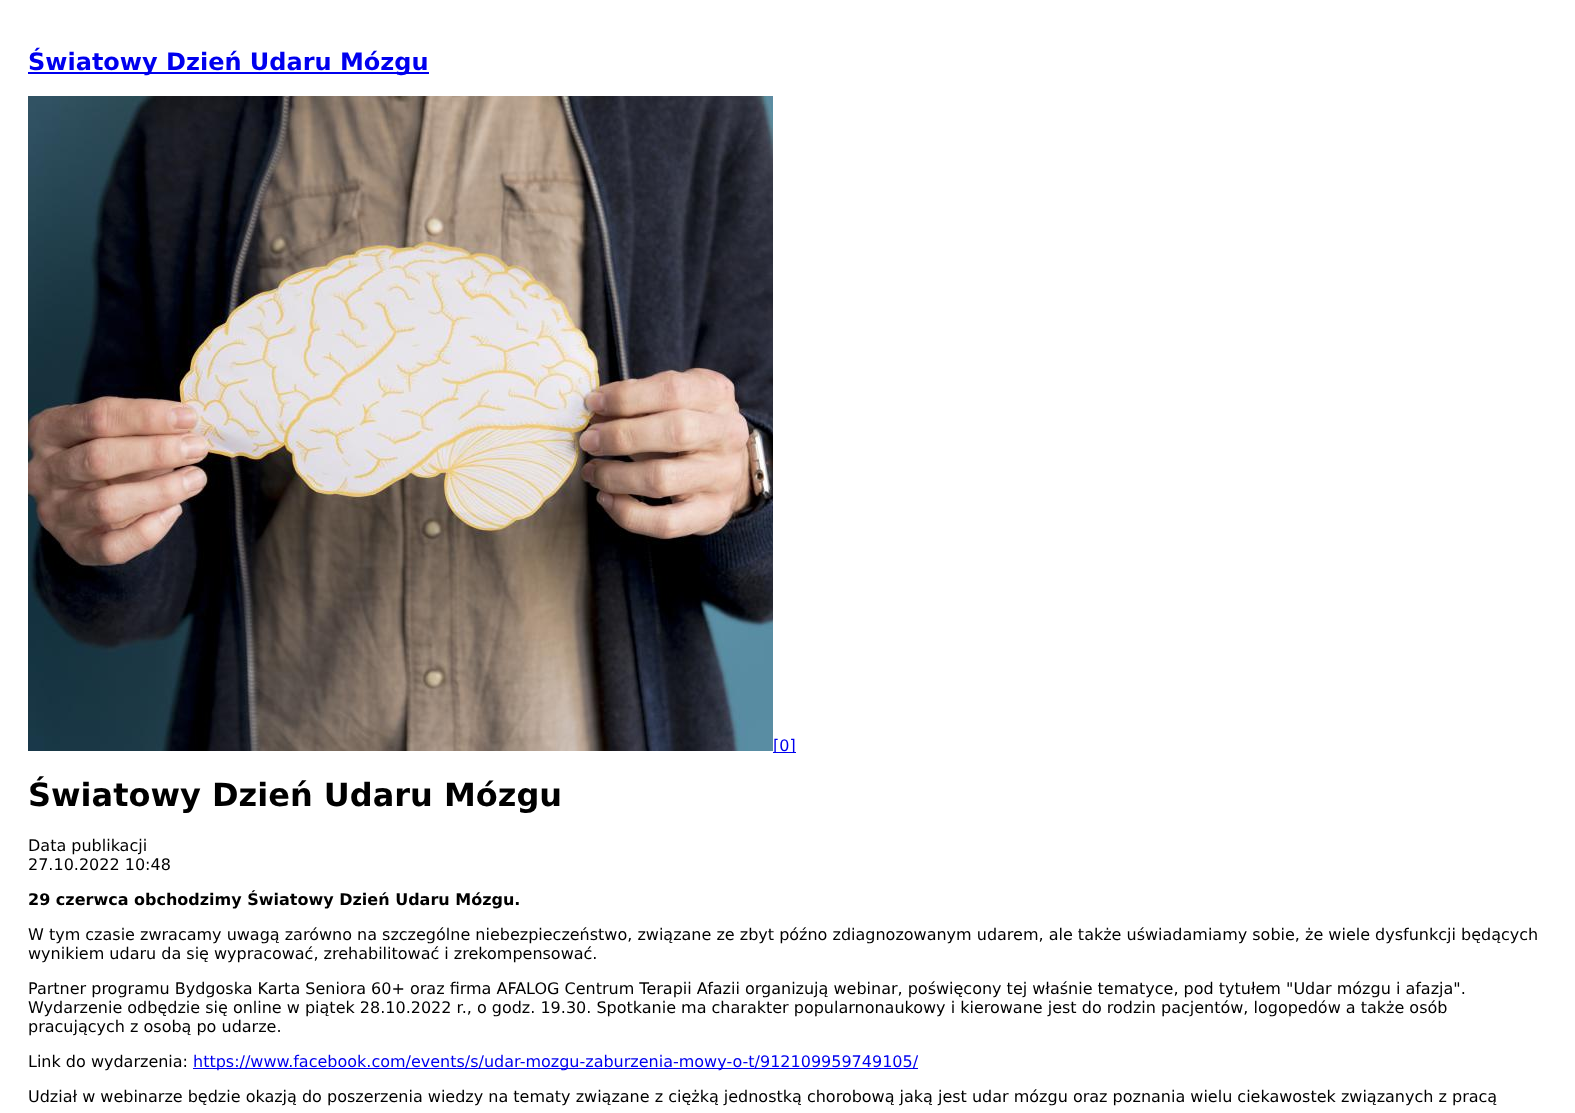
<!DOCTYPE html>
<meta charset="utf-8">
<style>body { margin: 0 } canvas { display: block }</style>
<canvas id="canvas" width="1575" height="1113"></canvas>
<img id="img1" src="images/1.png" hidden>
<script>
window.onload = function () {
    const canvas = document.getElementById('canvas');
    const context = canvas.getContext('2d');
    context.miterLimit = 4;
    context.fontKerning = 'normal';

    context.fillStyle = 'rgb(255, 255, 255)';
    context.fillRect(0, 0, 1575, 1113);
    context.fillStyle = 'rgb(0, 0, 238)';
    context.fillRect(28, 72, 401, 2);
    context.drawImage(document.getElementById('img1'), 28, 96, 745, 655);
    context.fillRect(773, 752, 23, 1);
    context.fillRect(193, 1068, 725, 1);
    context.font = 'bold 24px DejaVu Sans';
    context.fillText('Światowy Dzień Udaru Mózgu', 28, 70);
    context.font = '16px DejaVu Sans';
    context.fillText('[0]', 773, 751);
    context.font = 'bold 32px DejaVu Sans';
    context.fillStyle = 'rgb(0, 0, 0)';
    context.fillText('Światowy Dzień Udaru Mózgu', 28, 806);
    context.font = '16px DejaVu Sans';
    context.fillText('Data publikacji', 28, 851);
    context.fillText('27.10.2022 10:48', 28, 870);
    context.font = 'bold 16px DejaVu Sans';
    context.fillText('29 czerwca obchodzimy Światowy Dzień Udaru Mózgu.', 28, 905);
    context.font = '16px DejaVu Sans';
    context.fillText('W tym czasie zwracamy uwagą zarówno na szczególne niebezpieczeństwo, związane ze zbyt późno zdiagnozowanym udarem, ale także uświadamiamy sobie, że wiele dysfunkcji będących', 28, 940);
    context.fillText('wynikiem udaru da się wypracować, zrehabilitować i zrekompensować.', 28, 959);
    context.fillText('Partner programu Bydgoska Karta Seniora 60+ oraz firma AFALOG Centrum Terapii Afazii organizują webinar, poświęcony tej właśnie tematyce, pod tytułem "Udar mózgu i afazja".', 28, 994);
    context.fillText('Wydarzenie odbędzie się online w piątek 28.10.2022 r., o godz. 19.30. Spotkanie ma charakter popularnonaukowy i kierowane jest do rodzin pacjentów, logopedów a także osób', 28, 1013);
    context.fillText('pracujących z osobą po udarze.', 28, 1032);
    context.fillText('Link do wydarzenia:', 28, 1067);
    context.fillStyle = 'rgb(0, 0, 238)';
    context.fillText('https://www.facebook.com/events/s/udar-mozgu-zaburzenia-mowy-o-t/912109959749105/', 193, 1067);
    context.fillStyle = 'rgb(0, 0, 0)';
    context.fillText('Udział w webinarze będzie okazją do poszerzenia wiedzy na tematy związane z ciężką jednostką chorobową jaką jest udar mózgu oraz poznania wielu ciekawostek związanych z pracą', 28, 1102);
};
</script>
